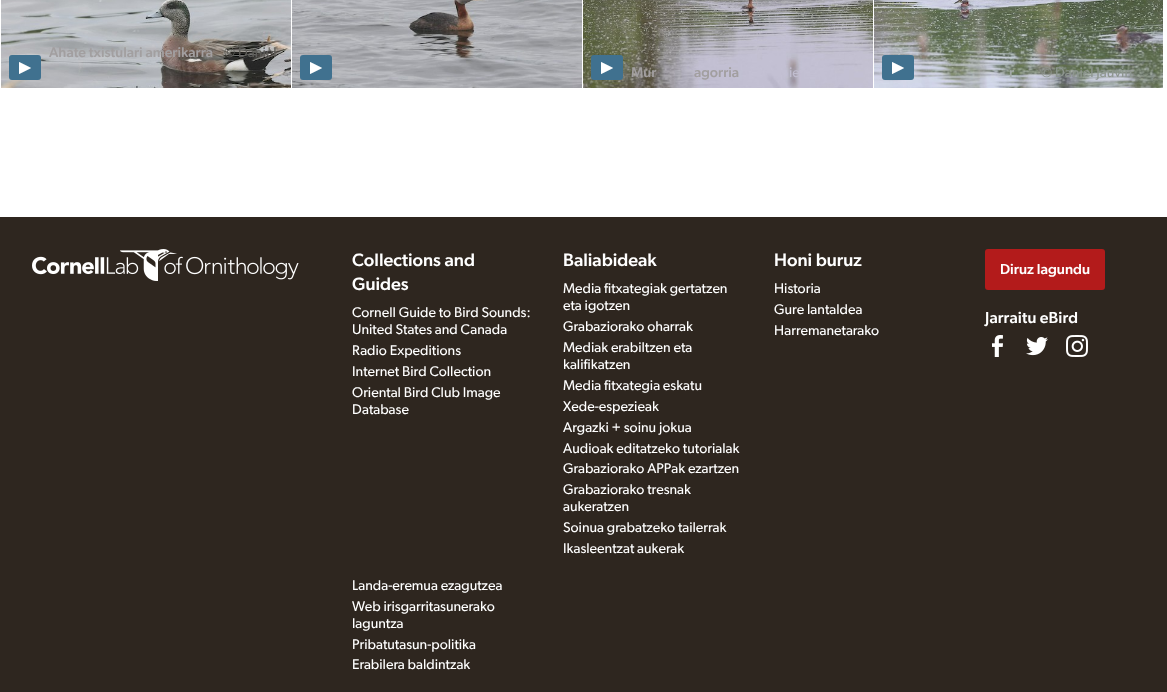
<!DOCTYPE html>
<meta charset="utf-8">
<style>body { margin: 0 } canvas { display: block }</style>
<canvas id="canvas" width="1167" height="692"></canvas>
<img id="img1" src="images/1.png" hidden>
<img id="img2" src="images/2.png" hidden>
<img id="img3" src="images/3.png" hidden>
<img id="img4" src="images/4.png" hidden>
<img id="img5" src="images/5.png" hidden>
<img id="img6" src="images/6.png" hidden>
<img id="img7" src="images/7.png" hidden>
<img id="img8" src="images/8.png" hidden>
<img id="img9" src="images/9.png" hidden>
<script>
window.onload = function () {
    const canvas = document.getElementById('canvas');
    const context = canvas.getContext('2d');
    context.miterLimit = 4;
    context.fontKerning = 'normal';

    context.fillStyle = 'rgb(255, 255, 255)';
    context.fillRect(0, 0, 1167, 692);
    context.drawImage(document.getElementById('img1'), 1, 0, 290, 88);
    context.fillStyle = 'rgb(64, 113, 143)';
    context.beginPath();
    context.roundRect(9, 55, 32, 25, 3);
    context.fill();
    context.drawImage(document.getElementById('img2'), 19, 62, 12, 12);
    context.drawImage(document.getElementById('img3'), 292, 0, 290, 88);
    context.beginPath();
    context.roundRect(300, 55, 32, 25, 3);
    context.fill();
    context.drawImage(document.getElementById('img2'), 310, 62, 12, 12);
    context.drawImage(document.getElementById('img4'), 583, 0, 290, 88);
    context.beginPath();
    context.roundRect(591, 55, 32, 25, 3);
    context.fill();
    context.drawImage(document.getElementById('img2'), 601, 62, 12, 12);
    context.drawImage(document.getElementById('img5'), 874, 0, 289, 88);
    context.beginPath();
    context.roundRect(882, 55, 32, 25, 3);
    context.fill();
    context.drawImage(document.getElementById('img2'), 892, 62, 12, 12);
    context.fillStyle = 'rgb(46, 38, 31)';
    context.fillRect(0, 217, 1167, 475);
    context.drawImage(document.getElementById('img6'), 32, 249, 267, 32);
    context.fillStyle = 'rgb(179, 27, 27)';
    context.beginPath();
    context.roundRect(985, 249, 120, 41, 3);
    context.fill();
    context.drawImage(document.getElementById('img7'), 992, 335, 11, 22);
    context.drawImage(document.getElementById('img8'), 1026, 337, 22, 19);
    context.drawImage(document.getElementById('img9'), 1066, 335, 22, 22);
    context.font = '500 14.1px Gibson';
    context.fillStyle = 'rgb(162, 159, 160)';
    context.fillText('Ahate txistulari amerikarra', 49, 57);
    context.font = '14.1px Gibson';
    context.fillStyle = 'rgb(94, 93, 89)';
    context.fillText('© Daniel', 224, 57);
    context.font = '500 14.1px Gibson';
    context.fillStyle = 'rgb(162, 159, 160)';
    context.fillText('Mur', 631, 77);
    context.fillText('agorria', 694, 77);
    context.font = '14.1px Gibson';
    context.fillStyle = 'rgb(192, 189, 207)';
    context.fillText('ie', 789, 77);
    context.font = '500 14.1px Gibson';
    context.fillStyle = 'rgb(162, 169, 166)';
    context.fillText('r', 1009, 77);
    context.font = '14.1px Gibson';
    context.fillStyle = 'rgb(142, 150, 143)';
    context.fillText('© Daniel Jauvin', 1041, 77);
    context.font = '500 18px Gibson';
    context.fillStyle = 'rgb(255, 255, 255)';
    context.fillText('Collections and', 352, 266);
    context.fillText('Guides', 352, 290);
    context.font = '14.1px Gibson';
    context.fillText('Cornell Guide to Bird Sounds:', 352, 317);
    context.fillText('United States and Canada', 352, 334);
    context.fillText('Radio Expeditions', 352, 355);
    context.fillText('Internet Bird Collection', 352, 376);
    context.fillText('Oriental Bird Club Image', 352, 397);
    context.fillText('Database', 352, 414);
    context.font = '500 18px Gibson';
    context.fillText('Baliabideak', 563, 266);
    context.font = '14.1px Gibson';
    context.fillText('Media fitxategiak gertatzen', 563, 293);
    context.fillText('eta igotzen', 563, 310);
    context.fillText('Grabaziorako oharrak', 563, 331);
    context.fillText('Mediak erabiltzen eta', 563, 352);
    context.fillText('kalifikatzen', 563, 369);
    context.fillText('Media fitxategia eskatu', 563, 390);
    context.fillText('Xede-espezieak', 563, 411);
    context.fillText('Argazki + soinu jokua', 563, 432);
    context.fillText('Audioak editatzeko tutorialak', 563, 453);
    context.fillText('Grabaziorako APPak ezartzen', 563, 473);
    context.fillText('Grabaziorako tresnak', 563, 494);
    context.fillText('aukeratzen', 563, 511);
    context.fillText('Soinua grabatzeko tailerrak', 563, 532);
    context.fillText('Ikasleentzat aukerak', 563, 553);
    context.font = '500 18px Gibson';
    context.fillText('Honi buruz', 774, 266);
    context.font = '14.1px Gibson';
    context.fillText('Historia', 774, 293);
    context.fillText('Gure lantaldea', 774, 314);
    context.fillText('Harremanetarako', 774, 335);
    context.fillText('Landa-eremua ezagutzea', 352, 590);
    context.fillText('Web irisgarritasunerako', 352, 611);
    context.fillText('laguntza', 352, 628);
    context.fillText('Pribatutasun-politika', 352, 649);
    context.fillText('Erabilera baldintzak', 352, 669);
    context.font = '500 14.5px Gibson';
    context.fillText('Diruz lagundu', 1000, 274);
    context.letterSpacing = '0.1px';
    context.font = '500 16px Gibson';
    context.fillText('Jarraitu eBird', 985, 323);
};
</script>
